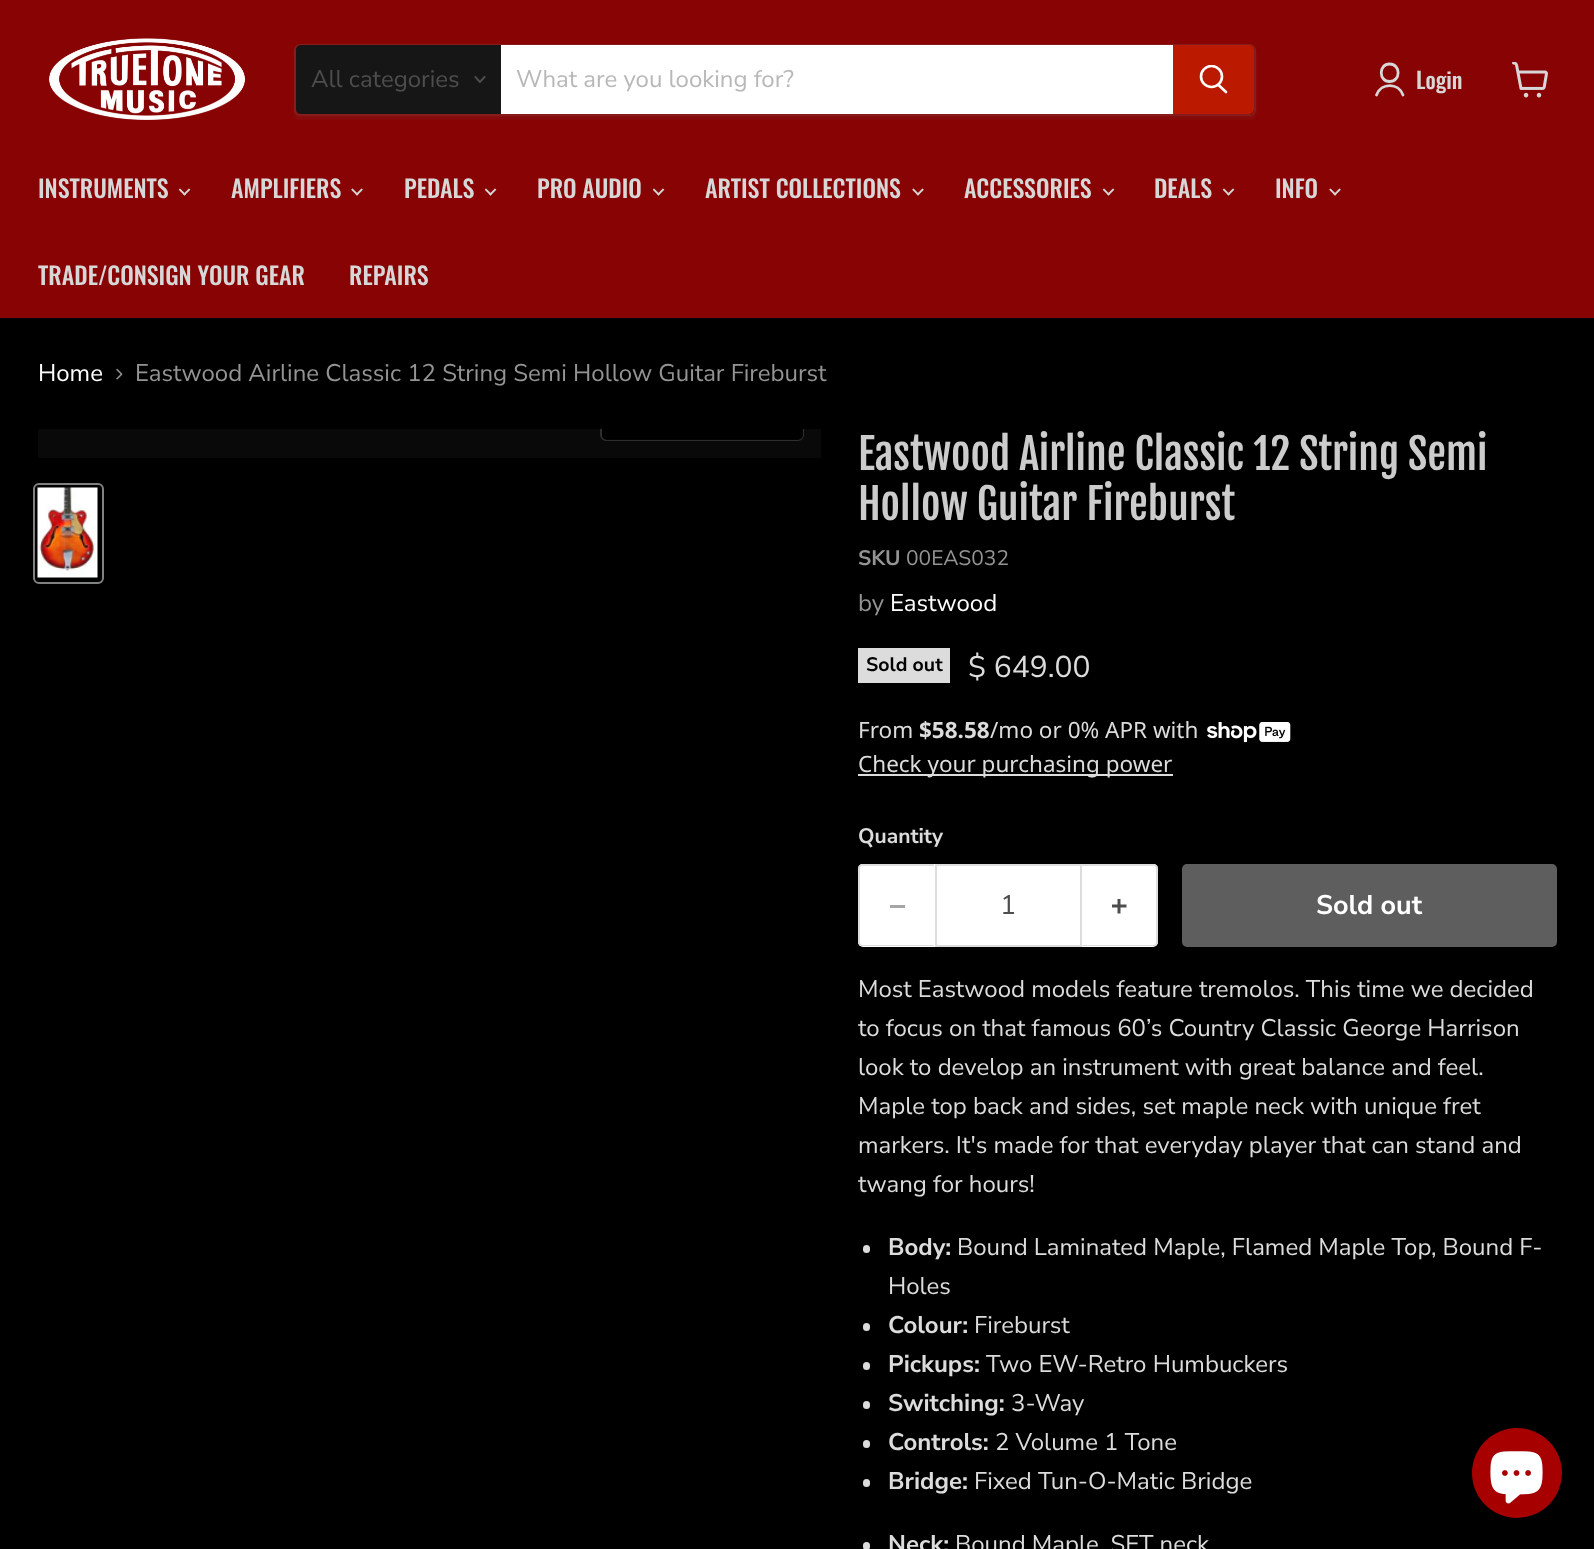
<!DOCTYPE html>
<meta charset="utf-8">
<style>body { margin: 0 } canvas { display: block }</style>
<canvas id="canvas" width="1594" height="1549"></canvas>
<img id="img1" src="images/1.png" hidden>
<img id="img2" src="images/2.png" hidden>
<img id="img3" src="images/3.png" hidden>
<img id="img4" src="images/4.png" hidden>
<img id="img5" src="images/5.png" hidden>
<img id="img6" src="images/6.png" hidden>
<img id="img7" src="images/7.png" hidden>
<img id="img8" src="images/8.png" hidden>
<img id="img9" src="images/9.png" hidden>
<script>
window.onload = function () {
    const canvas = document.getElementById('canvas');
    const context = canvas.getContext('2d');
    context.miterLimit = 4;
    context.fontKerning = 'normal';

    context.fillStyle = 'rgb(0, 0, 0)';
    context.fillRect(0, 0, 1594, 1549);
    context.fillStyle = 'rgb(136, 3, 3)';
    context.fillRect(0, 0, 1594, 318);
    context.drawImage(document.getElementById('img1'), 49, 38, 197, 82);
    context.save();
    context.beginPath();
    context.moveTo(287, 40);
    context.lineTo(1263, 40);
    context.lineTo(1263, 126);
    context.lineTo(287, 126);
    context.closePath();
    context.moveTo(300, 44);
    context.lineTo(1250, 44);
    context.bezierCurveTo(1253.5, 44, 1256, 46.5, 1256, 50);
    context.lineTo(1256, 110);
    context.bezierCurveTo(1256, 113.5, 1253.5, 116, 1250, 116);
    context.lineTo(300, 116);
    context.bezierCurveTo(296.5, 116, 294, 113.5, 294, 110);
    context.lineTo(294, 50);
    context.bezierCurveTo(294, 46.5, 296.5, 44, 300, 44);
    context.closePath();
    context.clip('evenodd');
    context.fillStyle = 'rgba(128, 128, 128, 0.11)';
    context.filter = 'blur(2px)';
    context.beginPath();
    context.roundRect(294, 47, 962, 72, 6);
    context.fill();
    context.filter = 'none';
    context.restore();
    context.beginPath();
    context.roundRect(295, 45, 960, 70, 5);
    context.strokeStyle = 'rgba(128, 128, 128, 0.2)';
    context.lineWidth = 2;
    context.stroke();
    context.fillStyle = 'rgb(22, 22, 22)';
    context.beginPath();
    context.roundRect(296, 45, 205, 69, [5, 0, 0, 5]);
    context.fill();
    context.beginPath();
    context.moveTo(480, 82);
    context.lineTo(484.5, 77);
    context.moveTo(480, 82);
    context.lineTo(475.5, 77);
    context.strokeStyle = 'rgb(77, 77, 77)';
    context.lineWidth = 1.9;
    context.lineCap = 'square';
    context.stroke();
    context.fillStyle = 'rgb(255, 255, 255)';
    context.fillRect(501, 45, 672, 69);
    context.fillStyle = 'rgb(187, 25, 0)';
    context.beginPath();
    context.roundRect(1174, 46, 79, 67, [0, 4, 4, 0]);
    context.fill();
    context.strokeStyle = 'rgb(187, 25, 0)';
    context.lineWidth = 2;
    context.stroke();
    context.beginPath();
    context.moveTo(1226, 92);
    context.lineTo(1218.5, 85);
    context.strokeStyle = 'rgb(255, 255, 255)';
    context.lineWidth = 2.6;
    context.lineCap = 'round';
    context.stroke();
    context.save();
    context.beginPath();
    context.rect(1199, 65, 30, 31);
    context.clip();
    context.beginPath();
    context.arc(1211.5, 76.5, 10.5, 0, 2 * Math.PI);
    context.stroke();
    context.restore();
    context.beginPath();
    context.moveTo(1389.5, 81.5);
    context.bezierCurveTo(1401, 81.5, 1401, 64, 1389.5, 64);
    context.bezierCurveTo(1378.5, 64, 1378.5, 81.5, 1389.5, 81.5);
    context.closePath();
    context.moveTo(1403, 95);
    context.bezierCurveTo(1398.5, 82.5, 1381, 82.5, 1376.5, 95);
    context.strokeStyle = 'rgb(215, 215, 215)';
    context.lineWidth = 2.8;
    context.lineJoin = 'round';
    context.stroke();
    context.drawImage(document.getElementById('img2'), 1512, 62, 36, 36);
    context.drawImage(document.getElementById('img3'), 179, 188, 12, 8);
    context.drawImage(document.getElementById('img4'), 351, 188, 12, 8);
    context.drawImage(document.getElementById('img3'), 485, 188, 12, 8);
    context.drawImage(document.getElementById('img3'), 653, 188, 12, 8);
    context.drawImage(document.getElementById('img4'), 912, 188, 12, 8);
    context.drawImage(document.getElementById('img3'), 1103, 188, 12, 8);
    context.drawImage(document.getElementById('img3'), 1223, 188, 12, 8);
    context.drawImage(document.getElementById('img4'), 1329, 188, 12, 8);
    context.drawImage(document.getElementById('img5'), 116, 368, 7, 12);
    context.fillStyle = 'rgb(9, 9, 9)';
    context.fillRect(38, 429, 783, 29);
    context.save();
    context.beginPath();
    context.rect(38, 429, 783, 29);
    context.clip();
    context.beginPath();
    context.roundRect(601, 397, 202, 43, 5);
    context.strokeStyle = 'rgb(46, 46, 46)';
    context.lineWidth = 2;
    context.lineJoin = 'miter';
    context.stroke();
    context.restore();
    context.fillStyle = 'rgba(0, 0, 0, 0.9)';
    context.beginPath();
    context.roundRect(602, 429, 201, 11, [0, 0, 5, 5]);
    context.fill();
    context.beginPath();
    context.roundRect(34, 484, 69, 99, 5);
    context.strokeStyle = 'rgb(129, 129, 129)';
    context.lineWidth = 2;
    context.lineJoin = 'miter';
    context.stroke();
    context.drawImage(document.getElementById('img6'), 37, 487, 61, 91);
    context.fillStyle = 'rgb(221, 220, 220)';
    context.fillRect(858, 648, 92, 35);
    context.drawImage(document.getElementById('img7'), 1207, 722, 84, 21);
    context.fillRect(858, 774, 315, 2);
    context.fillStyle = 'rgb(255, 255, 255)';
    context.beginPath();
    context.roundRect(858, 864, 77, 83, [5, 0, 0, 5]);
    context.fill();
    context.fillStyle = 'rgb(221, 221, 221)';
    context.beginPath();
    context.moveTo(862, 864);
    context.lineTo(934, 864);
    context.lineTo(934, 946);
    context.lineTo(862, 946);
    context.bezierCurveTo(860, 946, 858, 944, 858, 942);
    context.lineTo(858, 868);
    context.bezierCurveTo(858, 866, 860, 864, 862, 864);
    context.closePath();
    context.moveTo(862, 866);
    context.lineTo(934, 866);
    context.lineTo(934, 945);
    context.lineTo(862, 945);
    context.bezierCurveTo(861, 945, 860, 944, 860, 942);
    context.lineTo(860, 868);
    context.bezierCurveTo(860, 867, 861, 866, 862, 866);
    context.closePath();
    context.fill('evenodd');
    context.fillStyle = 'rgb(166, 166, 166)';
    context.fillRect(890, 905, 15, 3);
    context.fillStyle = 'rgb(255, 255, 255)';
    context.beginPath();
    context.rect(936, 865, 145, 81);
    context.fill();
    context.strokeStyle = 'rgb(221, 221, 221)';
    context.stroke();
    context.beginPath();
    context.roundRect(1082, 864, 76, 83, [0, 5, 5, 0]);
    context.fill();
    context.fillStyle = 'rgb(221, 221, 221)';
    context.beginPath();
    context.moveTo(1082, 864);
    context.lineTo(1154, 864);
    context.bezierCurveTo(1156, 864, 1158, 866, 1158, 868);
    context.lineTo(1158, 942);
    context.bezierCurveTo(1158, 944, 1156, 946, 1154, 946);
    context.lineTo(1082, 946);
    context.closePath();
    context.moveTo(1082, 866);
    context.lineTo(1154, 866);
    context.bezierCurveTo(1155, 866, 1156, 867, 1156, 868);
    context.lineTo(1156, 942);
    context.bezierCurveTo(1156, 944, 1155, 945, 1154, 945);
    context.lineTo(1082, 945);
    context.closePath();
    context.fill('evenodd');
    context.drawImage(document.getElementById('img8'), 1112, 899, 15, 15);
    context.fillStyle = 'rgb(94, 94, 94)';
    context.beginPath();
    context.roundRect(1183, 865, 373, 81, 4);
    context.fill();
    context.strokeStyle = 'rgb(94, 94, 94)';
    context.stroke();
    context.fillStyle = 'rgb(221, 220, 220)';
    context.beginPath();
    context.roundRect(863, 1245, 7, 8, 3.5);
    context.fill();
    context.beginPath();
    context.roundRect(863, 1323, 7, 8, 3.5);
    context.fill();
    context.beginPath();
    context.roundRect(863, 1362, 7, 8, 3.5);
    context.fill();
    context.beginPath();
    context.roundRect(863, 1401, 7, 8, 3.5);
    context.fill();
    context.beginPath();
    context.roundRect(863, 1440, 7, 8, 3.5);
    context.fill();
    context.beginPath();
    context.roundRect(863, 1479, 7, 8, 3.5);
    context.fill();
    context.beginPath();
    context.roundRect(863, 1542, 7, 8, 3.5);
    context.fill();
    context.fillStyle = 'rgb(166, 0, 0)';
    context.beginPath();
    context.arc(1517, 1473, 45, 0, 2 * Math.PI);
    context.fill();
    context.drawImage(document.getElementById('img9'), 1490, 1451, 53, 53);
    context.font = '24px Nunito Sans';
    context.fillStyle = 'rgb(77, 77, 77)';
    context.fillText('All categories', 311, 87);
    context.fillStyle = 'rgb(184, 184, 184)';
    context.fillText('What are you looking for?', 516, 87);
    context.font = '500 22.5px Oswald';
    context.fillStyle = 'rgb(215, 215, 215)';
    context.fillText('Login', 1416, 89);
    context.font = '500 24px Oswald';
    context.fillText('INSTRUMENTS', 38, 198);
    context.fillText('AMPLIFIERS', 231, 198);
    context.fillText('PEDALS', 404, 198);
    context.fillText('PRO AUDIO', 537, 198);
    context.fillText('ARTIST COLLECTIONS', 705, 198);
    context.fillText('ACCESSORIES', 964, 198);
    context.fillText('DEALS', 1154, 198);
    context.fillText('INFO', 1275, 198);
    context.fillText('TRADE/CONSIGN YOUR GEAR', 38, 285);
    context.fillText('REPAIRS', 349, 285);
    context.font = '24px Nunito Sans';
    context.fillStyle = 'rgb(255, 255, 255)';
    context.fillText('Home', 38, 381);
    context.fillStyle = 'rgb(148, 148, 148)';
    context.fillText('Eastwood Airline Classic 12 String Semi Hollow Guitar Fireburst', 135, 381);
    context.font = '42px Fjalla One';
    context.fillStyle = 'rgb(204, 204, 204)';
    context.fillText('Eastwood Airline Classic 12 String Semi', 858, 470);
    context.fillText('Hollow Guitar Fireburst', 858, 520);
    context.font = 'bold 21px Nunito Sans';
    context.fillStyle = 'rgb(148, 148, 148)';
    context.fillText('SKU', 858, 565);
    context.font = '21px Nunito Sans';
    context.fillText('00EAS032', 906, 565);
    context.font = '24px Nunito Sans';
    context.fillText('by', 858, 611);
    context.fillStyle = 'rgb(255, 255, 255)';
    context.fillText('Eastwood', 890, 611);
    context.font = 'bold 19.5px Nunito Sans';
    context.fillStyle = 'rgb(0, 0, 0)';
    context.fillText('Sold out', 866, 671);
    context.font = '30px Nunito Sans';
    context.fillStyle = 'rgb(221, 220, 220)';
    context.fillText('$ 649.00', 968, 677);
    context.font = '22.5px Noto Sans';
    context.fillText('From', 858, 738);
    context.font = 'bold 22.5px Noto Sans';
    context.fillText('$58.58', 919, 738);
    context.font = '22.5px Noto Sans';
    context.fillText('/mo or 0% APR with', 990, 738);
    context.fillText('Check your purchasing power', 858, 772);
    context.font = 'bold 21px Nunito Sans';
    context.fillText('Quantity', 858, 843);
    context.font = '27px Nunito Sans';
    context.fillStyle = 'rgb(77, 77, 77)';
    context.fillText('1', 1000, 914);
    context.font = 'bold 27px Nunito Sans';
    context.fillStyle = 'rgb(255, 255, 255)';
    context.fillText('Sold out', 1316, 914);
    context.font = '24px Nunito Sans';
    context.fillStyle = 'rgb(221, 220, 220)';
    context.fillText('Most Eastwood models feature tremolos. This time we decided', 858, 997);
    context.fillText('to focus on that famous 60’s Country Classic George Harrison', 858, 1036);
    context.fillText('look to develop an instrument with great balance and feel.', 858, 1075);
    context.fillText('Maple top back and sides, set maple neck with unique fret', 858, 1114);
    context.fillText('markers. It\'s made for that everyday player that can stand and', 858, 1153);
    context.fillText('twang for hours!', 858, 1192);
    context.font = 'bold 24px Nunito Sans';
    context.fillText('Body:', 888, 1255);
    context.font = '24px Nunito Sans';
    context.fillText('Bound Laminated Maple, Flamed Maple Top, Bound F-', 957, 1255);
    context.fillText('Holes', 888, 1294);
    context.font = 'bold 24px Nunito Sans';
    context.fillText('Colour:', 888, 1333);
    context.font = '24px Nunito Sans';
    context.fillText('Fireburst', 974, 1333);
    context.font = 'bold 24px Nunito Sans';
    context.fillText('Pickups:', 888, 1372);
    context.font = '24px Nunito Sans';
    context.fillText('Two EW-Retro Humbuckers', 986, 1372);
    context.font = 'bold 24px Nunito Sans';
    context.fillText('Switching:', 888, 1411);
    context.font = '24px Nunito Sans';
    context.fillText('3-Way', 1011, 1411);
    context.font = 'bold 24px Nunito Sans';
    context.fillText('Controls:', 888, 1450);
    context.font = '24px Nunito Sans';
    context.fillText('2 Volume 1 Tone', 995, 1450);
    context.font = 'bold 24px Nunito Sans';
    context.fillText('Bridge:', 888, 1489);
    context.font = '24px Nunito Sans';
    context.fillText('Fixed Tun-O-Matic Bridge', 974, 1489);
    context.font = 'bold 24px Nunito Sans';
    context.fillText('Neck:', 888, 1552);
    context.font = '24px Nunito Sans';
    context.fillText('Bound Maple, SET neck', 955, 1552);
};
</script>
